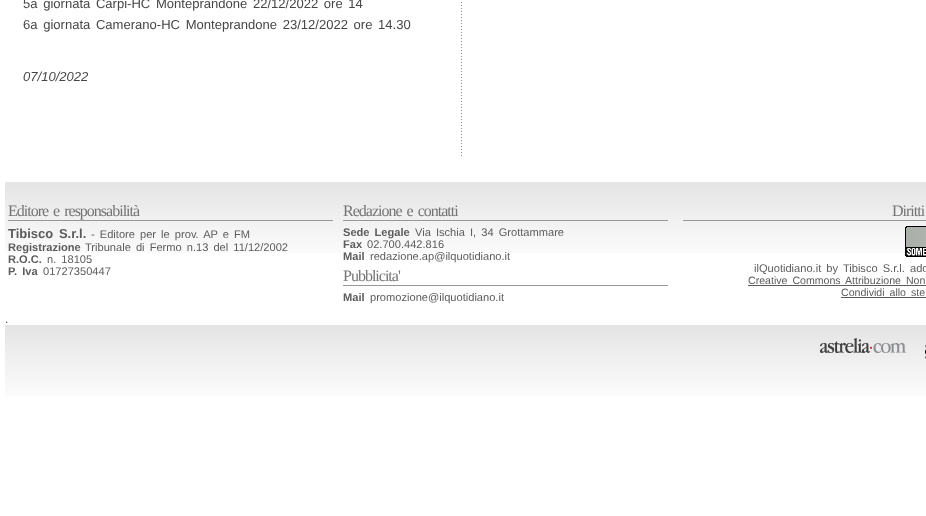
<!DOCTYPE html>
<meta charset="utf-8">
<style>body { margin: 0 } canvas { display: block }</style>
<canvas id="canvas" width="926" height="516"></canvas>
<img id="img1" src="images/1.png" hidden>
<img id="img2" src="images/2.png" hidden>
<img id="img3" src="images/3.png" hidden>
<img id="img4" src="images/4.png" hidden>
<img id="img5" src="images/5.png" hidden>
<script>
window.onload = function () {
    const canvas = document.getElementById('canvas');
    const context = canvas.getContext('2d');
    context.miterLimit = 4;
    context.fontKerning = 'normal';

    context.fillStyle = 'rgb(255, 255, 255)';
    context.fillRect(0, 0, 926, 516);
    context.drawImage(document.getElementById('img1'), 461, 2, 1, 154);
    context.drawImage(document.getElementById('img2'), 5, 182, 921, 71);
    context.fillStyle = 'rgb(151, 151, 151)';
    context.fillRect(8, 220, 325, 1);
    context.fillRect(343, 220, 325, 1);
    context.fillRect(343, 285, 325, 1);
    context.fillRect(683, 220, 243, 1);
    context.drawImage(document.getElementById('img3'), 905, 226, 21, 31);
    context.fillStyle = 'rgb(91, 91, 91)';
    context.fillRect(748, 285, 178, 1);
    context.fillRect(841, 297, 85, 1);
    context.drawImage(document.getElementById('img2'), 5, 325, 921, 71);
    context.drawImage(document.getElementById('img4'), 820, 338, 86, 15);
    context.drawImage(document.getElementById('img5'), 925, 344, 1, 15);
    context.wordSpacing = '2px';
    context.font = '13.05px Liberation Sans';
    context.fillStyle = 'rgb(70, 70, 70)';
    context.fillText('5a giornata Carpi-HC Monteprandone 22/12/2022 ore 14', 23, 8);
    context.fillText('6a giornata Camerano-HC Monteprandone 23/12/2022 ore 14.30', 23, 29);
    context.wordSpacing = '0px';
    context.font = 'italic 13.05px Liberation Sans';
    context.fillText('07/10/2022', 23, 81);
    context.letterSpacing = '-1px';
    context.wordSpacing = '2px';
    context.font = '16px Liberation Serif';
    context.fillStyle = 'rgb(116, 116, 116)';
    context.fillText('Editore e responsabilità', 8, 216);
    context.letterSpacing = '0px';
    context.font = 'bold 13px Liberation Sans';
    context.fillStyle = 'rgb(91, 91, 91)';
    context.fillText('Tibisco S.r.l.', 8, 238);
    context.font = '11.1px Liberation Sans';
    context.fillText('- Editore per le prov. AP e FM', 91, 238);
    context.wordSpacing = '0px';
    context.font = 'bold 11.1px Liberation Sans';
    context.fillText('Registrazione', 8, 251);
    context.wordSpacing = '2px';
    context.font = '11.1px Liberation Sans';
    context.fillText('Tribunale di Fermo n.13 del 11/12/2002', 85, 251);
    context.wordSpacing = '0px';
    context.font = 'bold 11.1px Liberation Sans';
    context.fillText('R.O.C.', 8, 263);
    context.wordSpacing = '2px';
    context.font = '11.1px Liberation Sans';
    context.fillText('n. 18105', 47, 263);
    context.font = 'bold 11.1px Liberation Sans';
    context.fillText('P. Iva', 8, 275);
    context.wordSpacing = '0px';
    context.font = '11.1px Liberation Sans';
    context.fillText('01727350447', 43, 275);
    context.letterSpacing = '-1px';
    context.wordSpacing = '2px';
    context.font = '16px Liberation Serif';
    context.fillStyle = 'rgb(116, 116, 116)';
    context.fillText('Redazione e contatti', 343, 216);
    context.letterSpacing = '0px';
    context.font = 'bold 11.1px Liberation Sans';
    context.fillStyle = 'rgb(91, 91, 91)';
    context.fillText('Sede Legale', 343, 236);
    context.font = '11.1px Liberation Sans';
    context.fillText('Via Ischia I, 34 Grottammare', 415, 236);
    context.wordSpacing = '0px';
    context.font = 'bold 11.1px Liberation Sans';
    context.fillText('Fax', 343, 248);
    context.font = '11.1px Liberation Sans';
    context.fillText('02.700.442.816', 367, 248);
    context.font = 'bold 11.1px Liberation Sans';
    context.fillText('Mail', 343, 260);
    context.font = '11.1px Liberation Sans';
    context.fillText('redazione.ap@ilquotidiano.it', 370, 260);
    context.letterSpacing = '-1px';
    context.font = '16px Liberation Serif';
    context.fillStyle = 'rgb(116, 116, 116)';
    context.fillText('Pubblicita\'', 343, 281);
    context.letterSpacing = '0px';
    context.font = 'bold 11.1px Liberation Sans';
    context.fillStyle = 'rgb(91, 91, 91)';
    context.fillText('Mail', 343, 301);
    context.font = '11.1px Liberation Sans';
    context.fillText('promozione@ilquotidiano.it', 370, 301);
    context.letterSpacing = '-1px';
    context.wordSpacing = '2px';
    context.font = '16px Liberation Serif';
    context.fillStyle = 'rgb(116, 116, 116)';
    context.fillText('Diritti', 892, 216);
    context.letterSpacing = '0px';
    context.font = '11.1px Liberation Sans';
    context.fillStyle = 'rgb(91, 91, 91)';
    context.fillText('ilQuotidiano.it by Tibisco S.r.l. ado', 754, 272);
    context.font = '10.6px Liberation Sans';
    context.fillText('Creative Commons Attribuzione Non', 748, 284);
    context.fillText('Condividi allo ste', 841, 296);
    context.wordSpacing = '0px';
    context.font = '12px Liberation Sans';
    context.fillStyle = 'rgb(70, 70, 70)';
    context.fillText('.', 5, 323);
};
</script>
